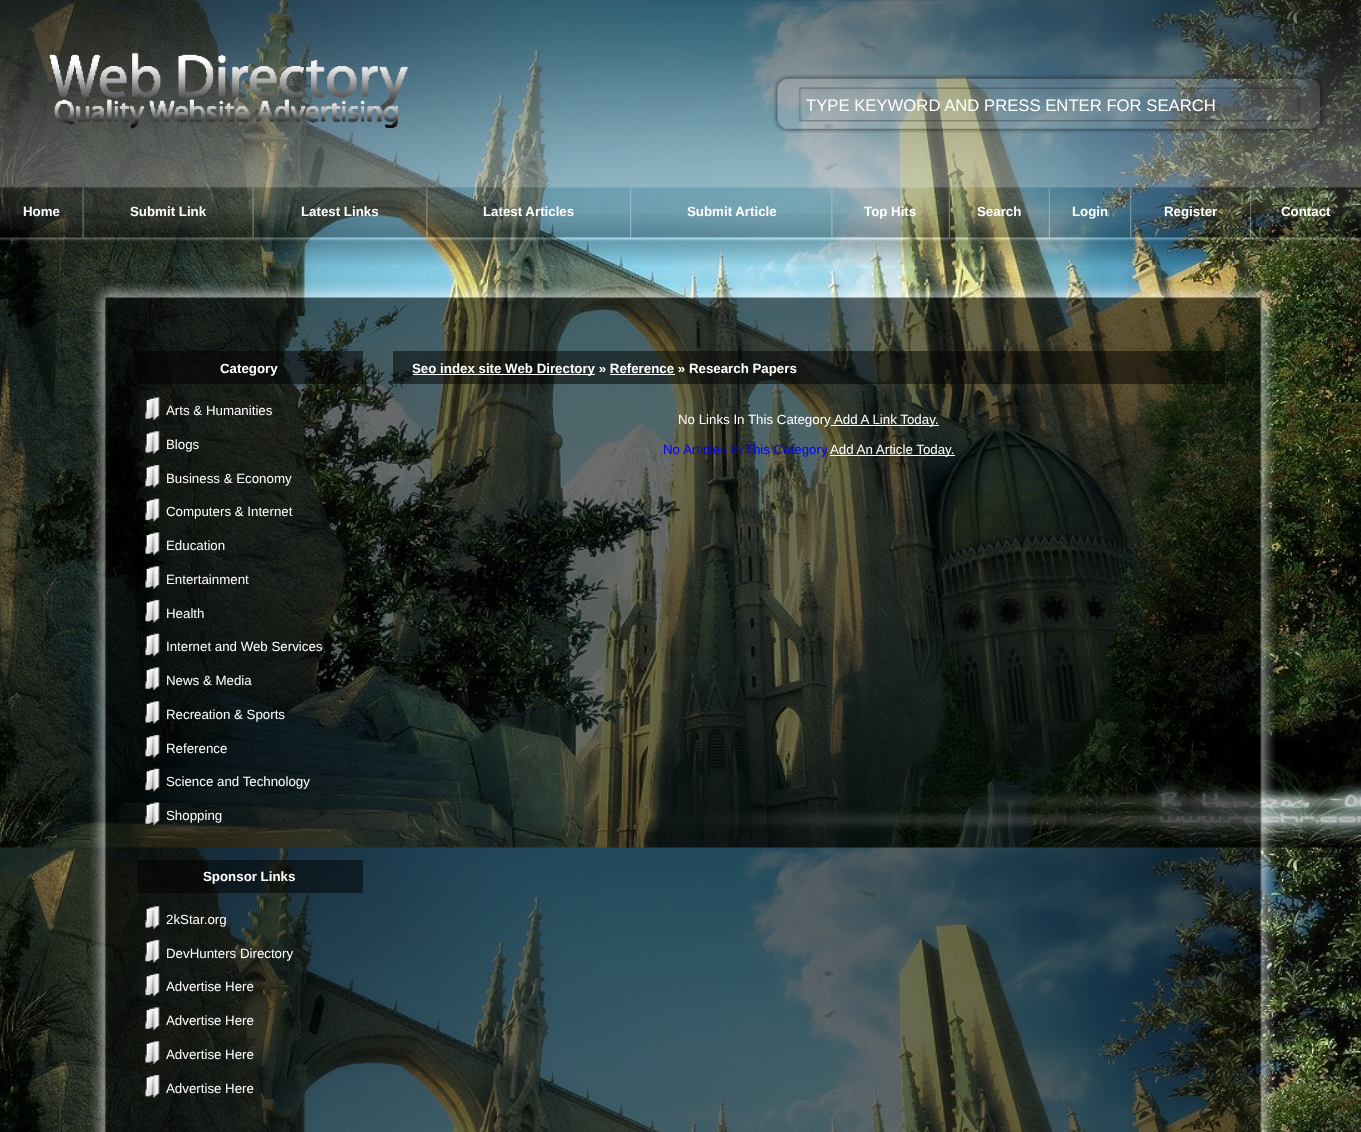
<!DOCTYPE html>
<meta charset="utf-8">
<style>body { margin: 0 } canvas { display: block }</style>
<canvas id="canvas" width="1361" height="1132"></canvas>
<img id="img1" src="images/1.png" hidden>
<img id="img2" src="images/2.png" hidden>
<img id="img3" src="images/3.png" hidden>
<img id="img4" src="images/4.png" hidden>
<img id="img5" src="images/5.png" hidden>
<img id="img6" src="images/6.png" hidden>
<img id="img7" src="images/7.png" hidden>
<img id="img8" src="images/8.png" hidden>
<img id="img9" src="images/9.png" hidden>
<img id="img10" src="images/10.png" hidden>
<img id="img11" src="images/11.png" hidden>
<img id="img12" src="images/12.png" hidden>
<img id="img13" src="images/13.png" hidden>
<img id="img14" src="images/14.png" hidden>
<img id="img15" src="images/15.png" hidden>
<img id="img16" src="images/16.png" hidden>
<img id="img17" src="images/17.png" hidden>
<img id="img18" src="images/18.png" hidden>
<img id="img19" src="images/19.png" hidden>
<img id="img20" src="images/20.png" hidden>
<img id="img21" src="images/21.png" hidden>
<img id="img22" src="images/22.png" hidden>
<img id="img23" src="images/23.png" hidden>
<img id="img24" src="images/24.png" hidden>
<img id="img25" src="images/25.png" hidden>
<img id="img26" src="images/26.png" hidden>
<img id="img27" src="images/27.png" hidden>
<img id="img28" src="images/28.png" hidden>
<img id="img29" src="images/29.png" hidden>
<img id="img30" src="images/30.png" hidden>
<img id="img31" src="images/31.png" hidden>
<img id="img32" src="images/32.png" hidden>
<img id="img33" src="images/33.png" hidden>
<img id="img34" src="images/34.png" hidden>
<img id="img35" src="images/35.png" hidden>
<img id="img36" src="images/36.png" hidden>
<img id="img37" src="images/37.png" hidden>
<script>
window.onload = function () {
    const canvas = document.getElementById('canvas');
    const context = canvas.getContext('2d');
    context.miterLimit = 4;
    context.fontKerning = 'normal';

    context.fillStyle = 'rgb(255, 255, 255)';
    context.fillRect(0, 0, 1361, 1132);
    context.drawImage(document.getElementById('img1'), 0, 0, 1361, 1132);
    context.drawImage(document.getElementById('img2'), 0, 0, 1361, 188);
    context.drawImage(document.getElementById('img3'), 49, 52, 359, 77);
    context.drawImage(document.getElementById('img4'), 49, 53, 359, 75);
    context.drawImage(document.getElementById('img5'), 773, 74, 551, 59);
    context.drawImage(document.getElementById('img6'), 0, 187, 1361, 51);
    context.drawImage(document.getElementById('img7'), 82, 187, 2, 51);
    context.drawImage(document.getElementById('img8'), 252, 187, 2, 51);
    context.drawImage(document.getElementById('img9'), 426, 187, 2, 51);
    context.drawImage(document.getElementById('img10'), 630, 187, 2, 51);
    context.drawImage(document.getElementById('img11'), 831, 187, 2, 51);
    context.drawImage(document.getElementById('img12'), 948, 187, 2, 51);
    context.drawImage(document.getElementById('img13'), 1048, 187, 2, 51);
    context.drawImage(document.getElementById('img14'), 1130, 187, 2, 51);
    context.drawImage(document.getElementById('img15'), 1250, 187, 2, 51);
    context.drawImage(document.getElementById('img16'), 0, 237, 1361, 28);
    context.drawImage(document.getElementById('img17'), 91, 283, 1184, 42);
    context.drawImage(document.getElementById('img18'), 90, 325, 1185, 807);
    context.fillStyle = 'rgba(0, 0, 0, 0.5)';
    context.fillRect(137, 351, 226, 33);
    context.drawImage(document.getElementById('img19'), 145, 397, 15, 24);
    context.drawImage(document.getElementById('img20'), 145, 431, 15, 23);
    context.drawImage(document.getElementById('img21'), 145, 464, 15, 24);
    context.drawImage(document.getElementById('img22'), 145, 498, 15, 24);
    context.drawImage(document.getElementById('img23'), 145, 532, 15, 24);
    context.drawImage(document.getElementById('img24'), 145, 566, 15, 23);
    context.drawImage(document.getElementById('img25'), 145, 599, 15, 24);
    context.drawImage(document.getElementById('img26'), 145, 633, 15, 24);
    context.drawImage(document.getElementById('img27'), 145, 667, 15, 24);
    context.drawImage(document.getElementById('img28'), 145, 701, 15, 23);
    context.drawImage(document.getElementById('img29'), 145, 734, 15, 24);
    context.drawImage(document.getElementById('img30'), 145, 768, 15, 24);
    context.drawImage(document.getElementById('img31'), 145, 802, 15, 24);
    context.fillRect(137, 860, 226, 33);
    context.drawImage(document.getElementById('img32'), 145, 906, 15, 23);
    context.drawImage(document.getElementById('img33'), 145, 939, 15, 24);
    context.drawImage(document.getElementById('img34'), 145, 973, 15, 24);
    context.drawImage(document.getElementById('img35'), 145, 1007, 15, 24);
    context.drawImage(document.getElementById('img36'), 145, 1041, 15, 23);
    context.drawImage(document.getElementById('img37'), 145, 1074, 15, 24);
    context.fillRect(393, 351, 832, 33);
    context.fillStyle = 'rgb(255, 255, 255)';
    context.fillRect(413, 374, 182, 1);
    context.fillRect(610, 374, 65, 1);
    context.fillRect(831, 425, 108, 1);
    context.fillRect(830, 455, 125, 1);
    context.font = '16.7px Liberation Sans';
    context.fillText('TYPE KEYWORD AND PRESS ENTER FOR SEARCH', 806, 111);
    context.font = 'bold 13.3px Liberation Sans';
    context.fillText('Home', 23, 216);
    context.fillText('Submit Link', 130, 216);
    context.fillText('Latest Links', 301, 216);
    context.fillText('Latest Articles', 483, 216);
    context.fillText('Submit Article', 687, 216);
    context.fillText('Top Hits', 864, 216);
    context.fillText('Search', 977, 216);
    context.fillText('Login', 1072, 216);
    context.fillText('Register', 1164, 216);
    context.fillText('Contact', 1281, 216);
    context.fillText('Category', 220, 373);
    context.font = '13.3px Liberation Sans';
    context.fillText('Arts & Humanities', 166, 415);
    context.fillText('Blogs', 166, 449);
    context.fillText('Business & Economy', 166, 483);
    context.fillText('Computers & Internet', 166, 516);
    context.fillText('Education', 166, 550);
    context.fillText('Entertainment', 166, 584);
    context.fillText('Health', 166, 618);
    context.fillText('Internet and Web Services', 166, 651);
    context.fillText('News & Media', 166, 685);
    context.fillText('Recreation & Sports', 166, 719);
    context.fillText('Reference', 166, 753);
    context.fillText('Science and Technology', 166, 786);
    context.fillText('Shopping', 166, 820);
    context.font = 'bold 13.3px Liberation Sans';
    context.fillText('Sponsor Links', 203, 881);
    context.font = '13.3px Liberation Sans';
    context.fillText('2kStar.org', 166, 924);
    context.fillText('DevHunters Directory', 166, 958);
    context.fillText('Advertise Here', 166, 991);
    context.fillText('Advertise Here', 166, 1025);
    context.fillText('Advertise Here', 166, 1059);
    context.fillText('Advertise Here', 166, 1093);
    context.font = 'bold 13.3px Liberation Sans';
    context.fillText('Seo index site Web Directory » Reference » Research Papers', 412, 373);
    context.font = '13.3px Liberation Sans';
    context.fillText('No Links In This Category', 678, 424);
    context.fillText('Add A Link Today.', 834, 424);
    context.fillStyle = 'rgb(0, 0, 255)';
    context.fillText('No Articles In This Category', 663, 454);
    context.fillStyle = 'rgb(255, 255, 255)';
    context.fillText('Add An Article Today.', 830, 454);
};
</script>
